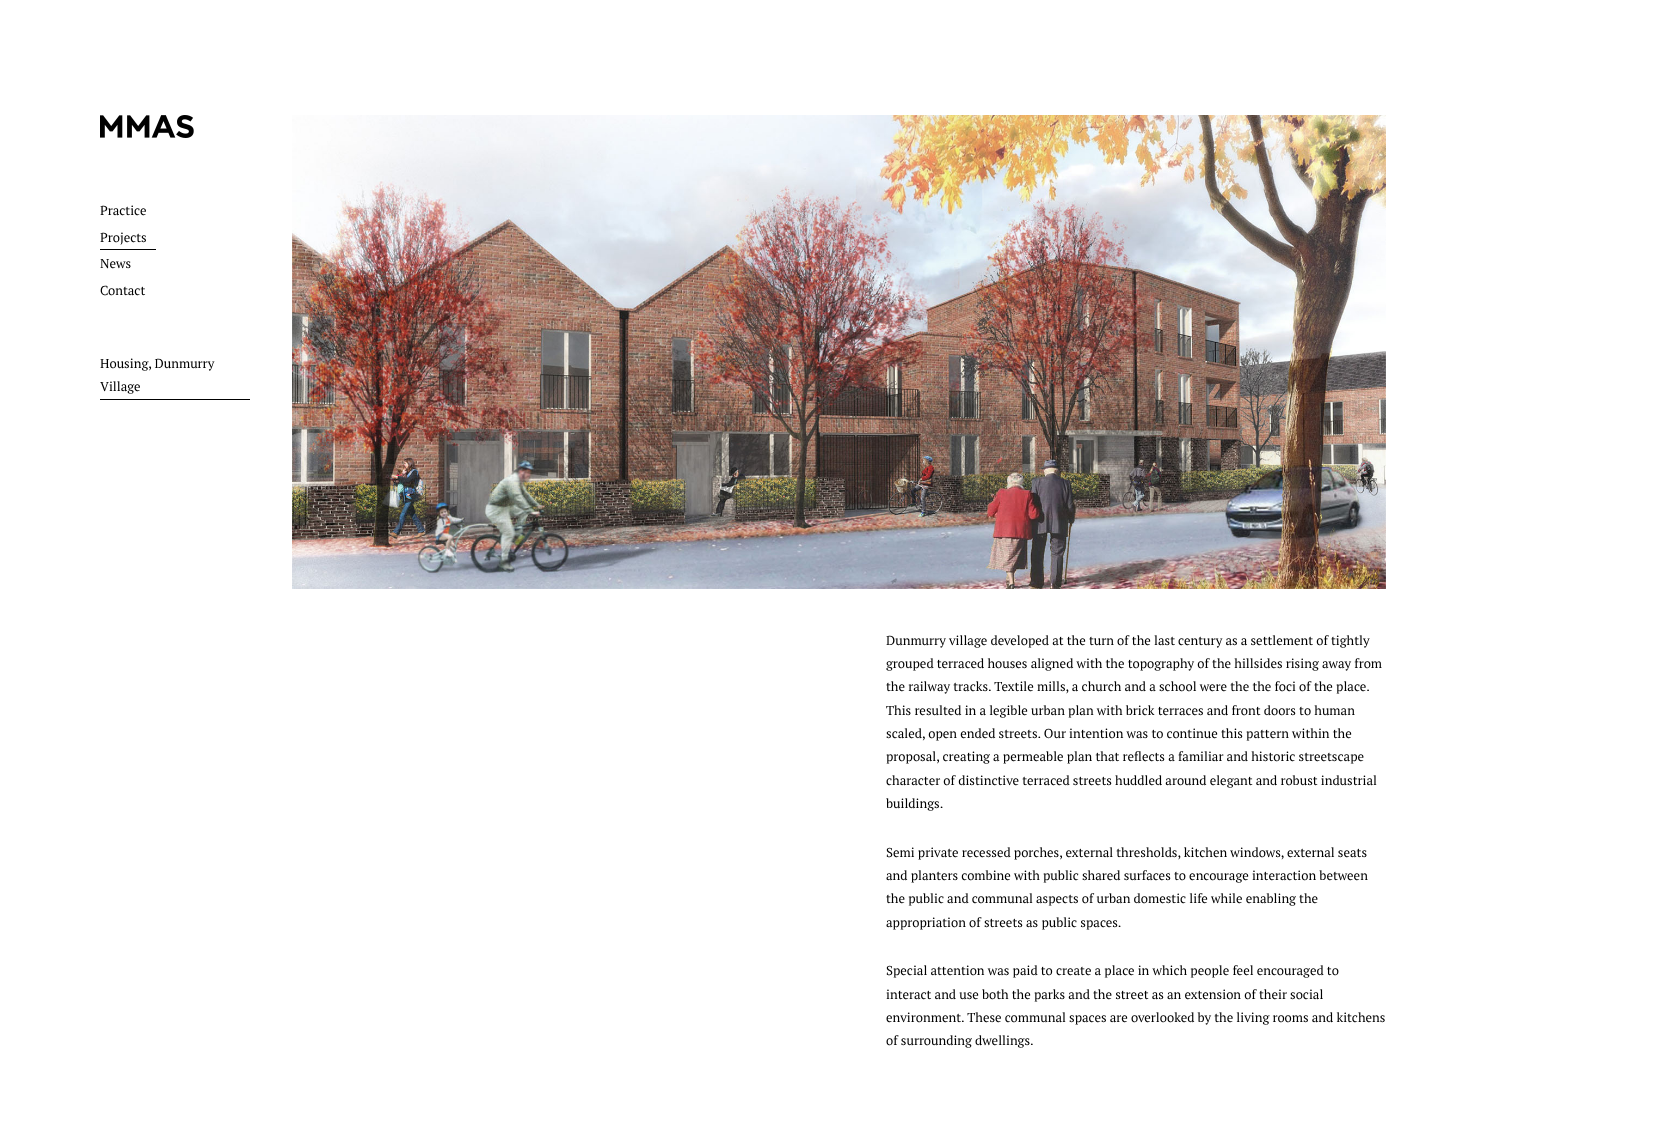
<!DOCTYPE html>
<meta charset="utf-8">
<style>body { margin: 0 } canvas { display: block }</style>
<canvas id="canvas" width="1678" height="1129"></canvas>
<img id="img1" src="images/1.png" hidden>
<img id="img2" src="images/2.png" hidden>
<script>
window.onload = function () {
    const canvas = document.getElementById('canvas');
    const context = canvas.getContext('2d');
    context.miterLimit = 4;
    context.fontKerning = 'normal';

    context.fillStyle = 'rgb(255, 255, 255)';
    context.fillRect(0, 0, 1678, 1129);
    context.drawImage(document.getElementById('img1'), 100, 115, 94, 23);
    context.fillStyle = 'rgb(0, 0, 0)';
    context.fillRect(100, 249, 56, 1);
    context.fillRect(100, 399, 150, 1);
    context.drawImage(document.getElementById('img2'), 292, 115, 1094, 474);
    context.font = '13px PT Serif';
    context.fillText('Practice', 100, 215);
    context.fillText('Projects', 100, 242);
    context.fillText('News', 100, 268);
    context.fillText('Contact', 100, 295);
    context.fillText('Housing, Dunmurry', 100, 368);
    context.fillText('Village', 100, 391);
    context.fillText('Dunmurry village developed at the turn of the last century as a settlement of tightly', 886, 645);
    context.fillText('grouped terraced houses aligned with the topography of the hillsides rising away from', 886, 668);
    context.fillText('the railway tracks. Textile mills, a church and a school were the the foci of the place.', 886, 691);
    context.fillText('This resulted in a legible urban plan with brick terraces and front doors to human', 886, 715);
    context.fillText('scaled, open ended streets. Our intention was to continue this pattern within the', 886, 738);
    context.fillText('proposal, creating a permeable plan that reflects a familiar and historic streetscape', 886, 761);
    context.fillText('character of distinctive terraced streets huddled around elegant and robust industrial', 886, 785);
    context.fillText('buildings.', 886, 808);
    context.fillText('Semi private recessed porches, external thresholds, kitchen windows, external seats', 886, 857);
    context.fillText('and planters combine with public shared surfaces to encourage interaction between', 886, 880);
    context.fillText('the public and communal aspects of urban domestic life while enabling the', 886, 903);
    context.fillText('appropriation of streets as public spaces.', 886, 927);
    context.fillText('Special attention was paid to create a place in which people feel encouraged to', 886, 975);
    context.fillText('interact and use both the parks and the street as an extension of their social', 886, 999);
    context.fillText('environment. These communal spaces are overlooked by the living rooms and kitchens', 886, 1022);
    context.fillText('of surrounding dwellings.', 886, 1045);
};
</script>
